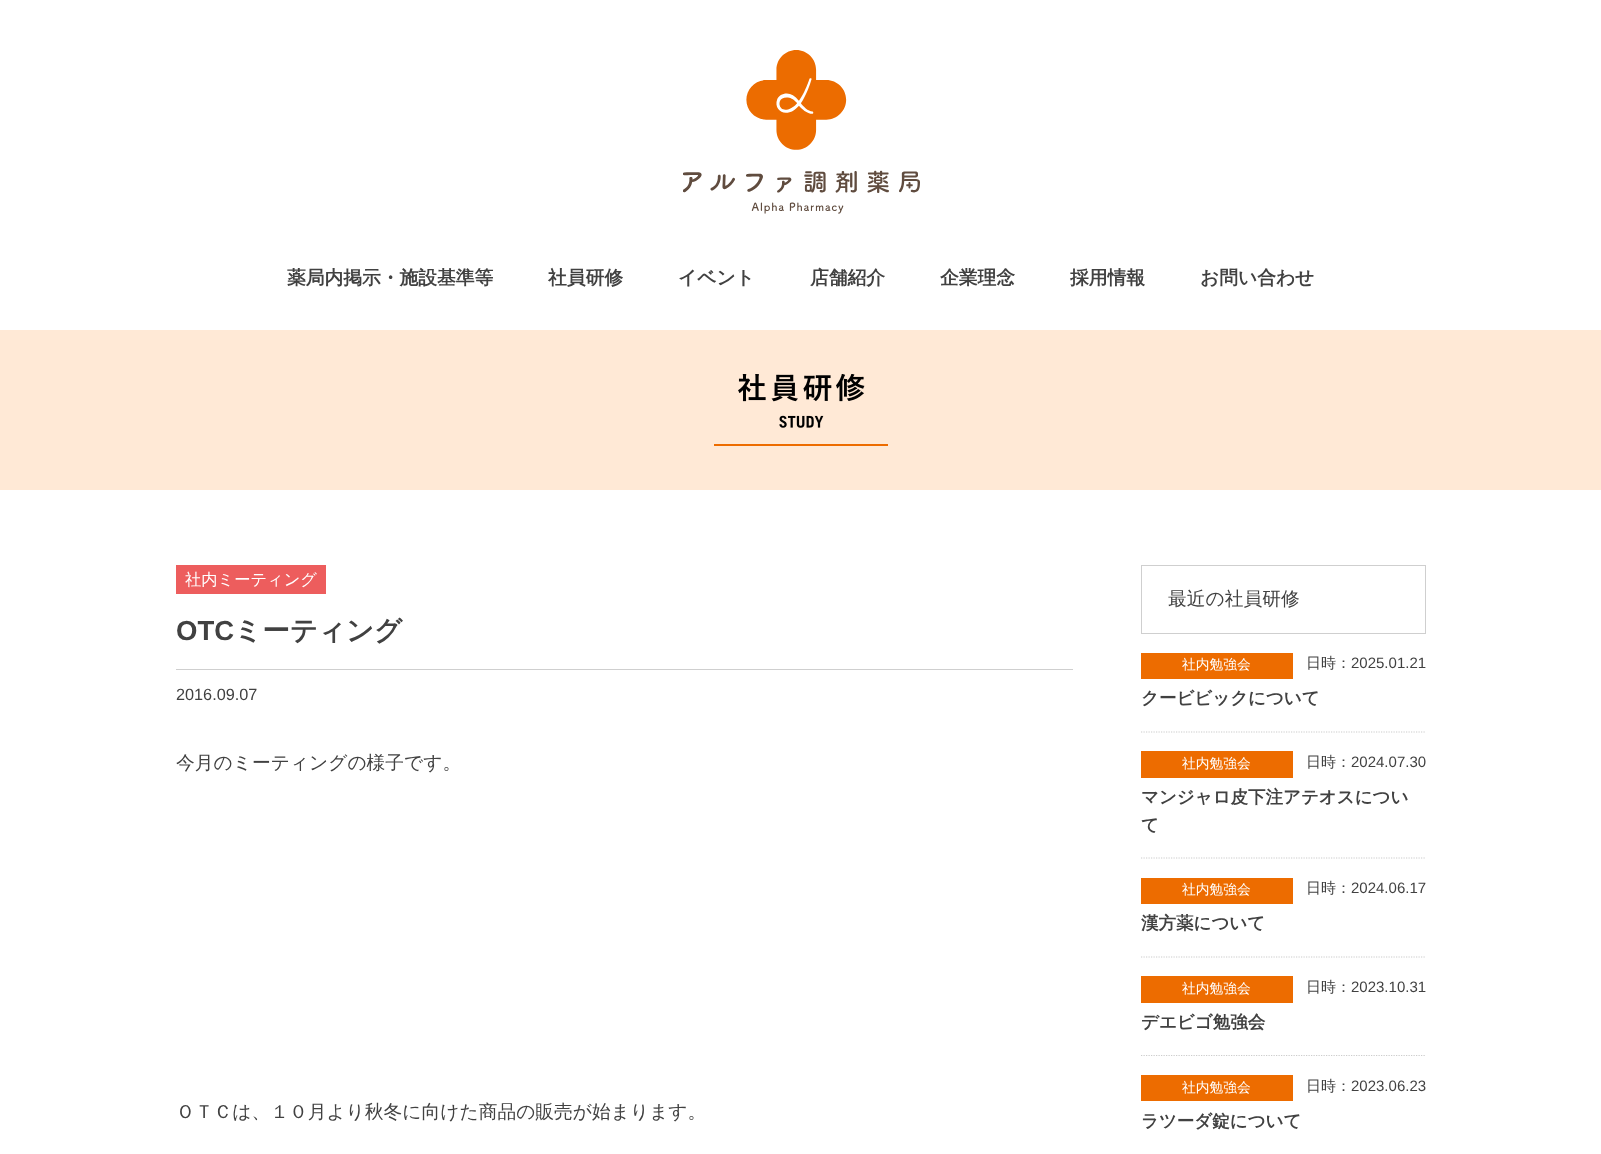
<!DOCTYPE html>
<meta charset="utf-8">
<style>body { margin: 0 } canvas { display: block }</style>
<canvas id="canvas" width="1601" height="1154"></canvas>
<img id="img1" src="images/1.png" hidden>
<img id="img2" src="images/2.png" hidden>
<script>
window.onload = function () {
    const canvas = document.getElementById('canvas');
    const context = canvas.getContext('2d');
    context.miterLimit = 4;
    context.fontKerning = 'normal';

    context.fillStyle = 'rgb(255, 255, 255)';
    context.fillRect(0, 0, 1601, 1154);
    context.drawImage(document.getElementById('img1'), 683, 50, 237, 164);
    context.fillStyle = 'rgb(255, 233, 214)';
    context.fillRect(0, 330, 1601, 160);
    context.drawImage(document.getElementById('img2'), 714, 374, 174, 72);
    context.fillStyle = 'rgb(237, 93, 93)';
    context.fillRect(176, 565, 150, 29);
    context.fillStyle = 'rgb(207, 207, 207)';
    context.fillRect(176, 669, 897, 1);
    context.strokeStyle = 'rgb(207, 207, 207)';
    context.strokeRect(1141.5, 565.5, 284, 68);
    context.beginPath();
    context.moveTo(1141, 732);
    context.lineTo(1426, 732);
    context.strokeStyle = 'rgb(204, 204, 204)';
    context.lineWidth = 1.2;
    context.setLineDash([1.25, 1.25]);
    context.stroke();
    context.fillStyle = 'rgb(237, 108, 0)';
    context.fillRect(1141, 653, 152, 26);
    context.beginPath();
    context.moveTo(1141, 858);
    context.lineTo(1426, 858);
    context.stroke();
    context.fillRect(1141, 751, 152, 27);
    context.beginPath();
    context.moveTo(1141, 957);
    context.lineTo(1426, 957);
    context.stroke();
    context.fillRect(1141, 878, 152, 26);
    context.beginPath();
    context.moveTo(1141, 1055.5);
    context.lineTo(1426, 1055.5);
    context.stroke();
    context.fillRect(1141, 976, 152, 27);
    context.beginPath();
    context.moveTo(1141, 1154.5);
    context.lineTo(1426, 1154.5);
    context.stroke();
    context.fillRect(1141, 1075, 152, 26);
    context.font = 'bold 18.75px WenQuanYi Zen Hei';
    context.fillStyle = 'rgb(65, 65, 65)';
    context.fillText('薬局内掲示・施設基準等', 287, 284);
    context.fillText('社員研修', 548, 284);
    context.fillText('イベント', 678, 284);
    context.fillText('店舗紹介', 810, 284);
    context.fillText('企業理念', 940, 284);
    context.fillText('採用情報', 1070, 284);
    context.fillText('お問い合わせ', 1200, 284);
    context.font = '500 16.25px WenQuanYi Zen Hei';
    context.fillStyle = 'rgb(255, 255, 255)';
    context.fillText('社内ミーティング', 185, 585);
    context.font = 'bold 27.5px Liberation Sans';
    context.fillStyle = 'rgb(65, 65, 65)';
    context.fillText('OTC', 176, 640);
    context.font = 'bold 27.5px WenQuanYi Zen Hei';
    context.fillText('ミーティング', 234, 640);
    context.font = '16.25px Liberation Sans';
    context.fillText('2016.09.07', 176, 700);
    context.font = '500 18.75px WenQuanYi Zen Hei';
    context.fillText('今月のミーティングの様子です。', 176, 769);
    context.fillText('ＯＴＣは、１０月より秋冬に向けた商品の販売が始まります。', 176, 1118);
    context.fillText('最近の社員研修', 1168, 605);
    context.font = '500 13.75px WenQuanYi Zen Hei';
    context.fillStyle = 'rgb(255, 255, 255)';
    context.fillText('社内勉強会', 1182, 669);
    context.font = '500 15px WenQuanYi Zen Hei';
    context.fillStyle = 'rgb(65, 65, 65)';
    context.fillText('日時：', 1306, 668);
    context.font = '15px Liberation Sans';
    context.fillText('2025.01.21', 1351, 668);
    context.font = 'bold 17.5px WenQuanYi Zen Hei';
    context.fillText('クービビックについて', 1141, 704);
    context.font = '500 13.75px WenQuanYi Zen Hei';
    context.fillStyle = 'rgb(255, 255, 255)';
    context.fillText('社内勉強会', 1182, 768);
    context.font = '500 15px WenQuanYi Zen Hei';
    context.fillStyle = 'rgb(65, 65, 65)';
    context.fillText('日時：', 1306, 767);
    context.font = '15px Liberation Sans';
    context.fillText('2024.07.30', 1351, 767);
    context.font = 'bold 17.5px WenQuanYi Zen Hei';
    context.fillText('マンジャロ皮下注アテオスについ', 1141, 803);
    context.fillText('て', 1141, 831);
    context.font = '500 13.75px WenQuanYi Zen Hei';
    context.fillStyle = 'rgb(255, 255, 255)';
    context.fillText('社内勉強会', 1182, 894);
    context.font = '500 15px WenQuanYi Zen Hei';
    context.fillStyle = 'rgb(65, 65, 65)';
    context.fillText('日時：', 1306, 893);
    context.font = '15px Liberation Sans';
    context.fillText('2024.06.17', 1351, 893);
    context.font = 'bold 17.5px WenQuanYi Zen Hei';
    context.fillText('漢方薬について', 1141, 929);
    context.font = '500 13.75px WenQuanYi Zen Hei';
    context.fillStyle = 'rgb(255, 255, 255)';
    context.fillText('社内勉強会', 1182, 993);
    context.font = '500 15px WenQuanYi Zen Hei';
    context.fillStyle = 'rgb(65, 65, 65)';
    context.fillText('日時：', 1306, 992);
    context.font = '15px Liberation Sans';
    context.fillText('2023.10.31', 1351, 992);
    context.font = 'bold 17.5px WenQuanYi Zen Hei';
    context.fillText('デエビゴ勉強会', 1141, 1028);
    context.font = '500 13.75px WenQuanYi Zen Hei';
    context.fillStyle = 'rgb(255, 255, 255)';
    context.fillText('社内勉強会', 1182, 1092);
    context.font = '500 15px WenQuanYi Zen Hei';
    context.fillStyle = 'rgb(65, 65, 65)';
    context.fillText('日時：', 1306, 1091);
    context.font = '15px Liberation Sans';
    context.fillText('2023.06.23', 1351, 1091);
    context.font = 'bold 17.5px WenQuanYi Zen Hei';
    context.fillText('ラツーダ錠について', 1141, 1127);
};
</script>
